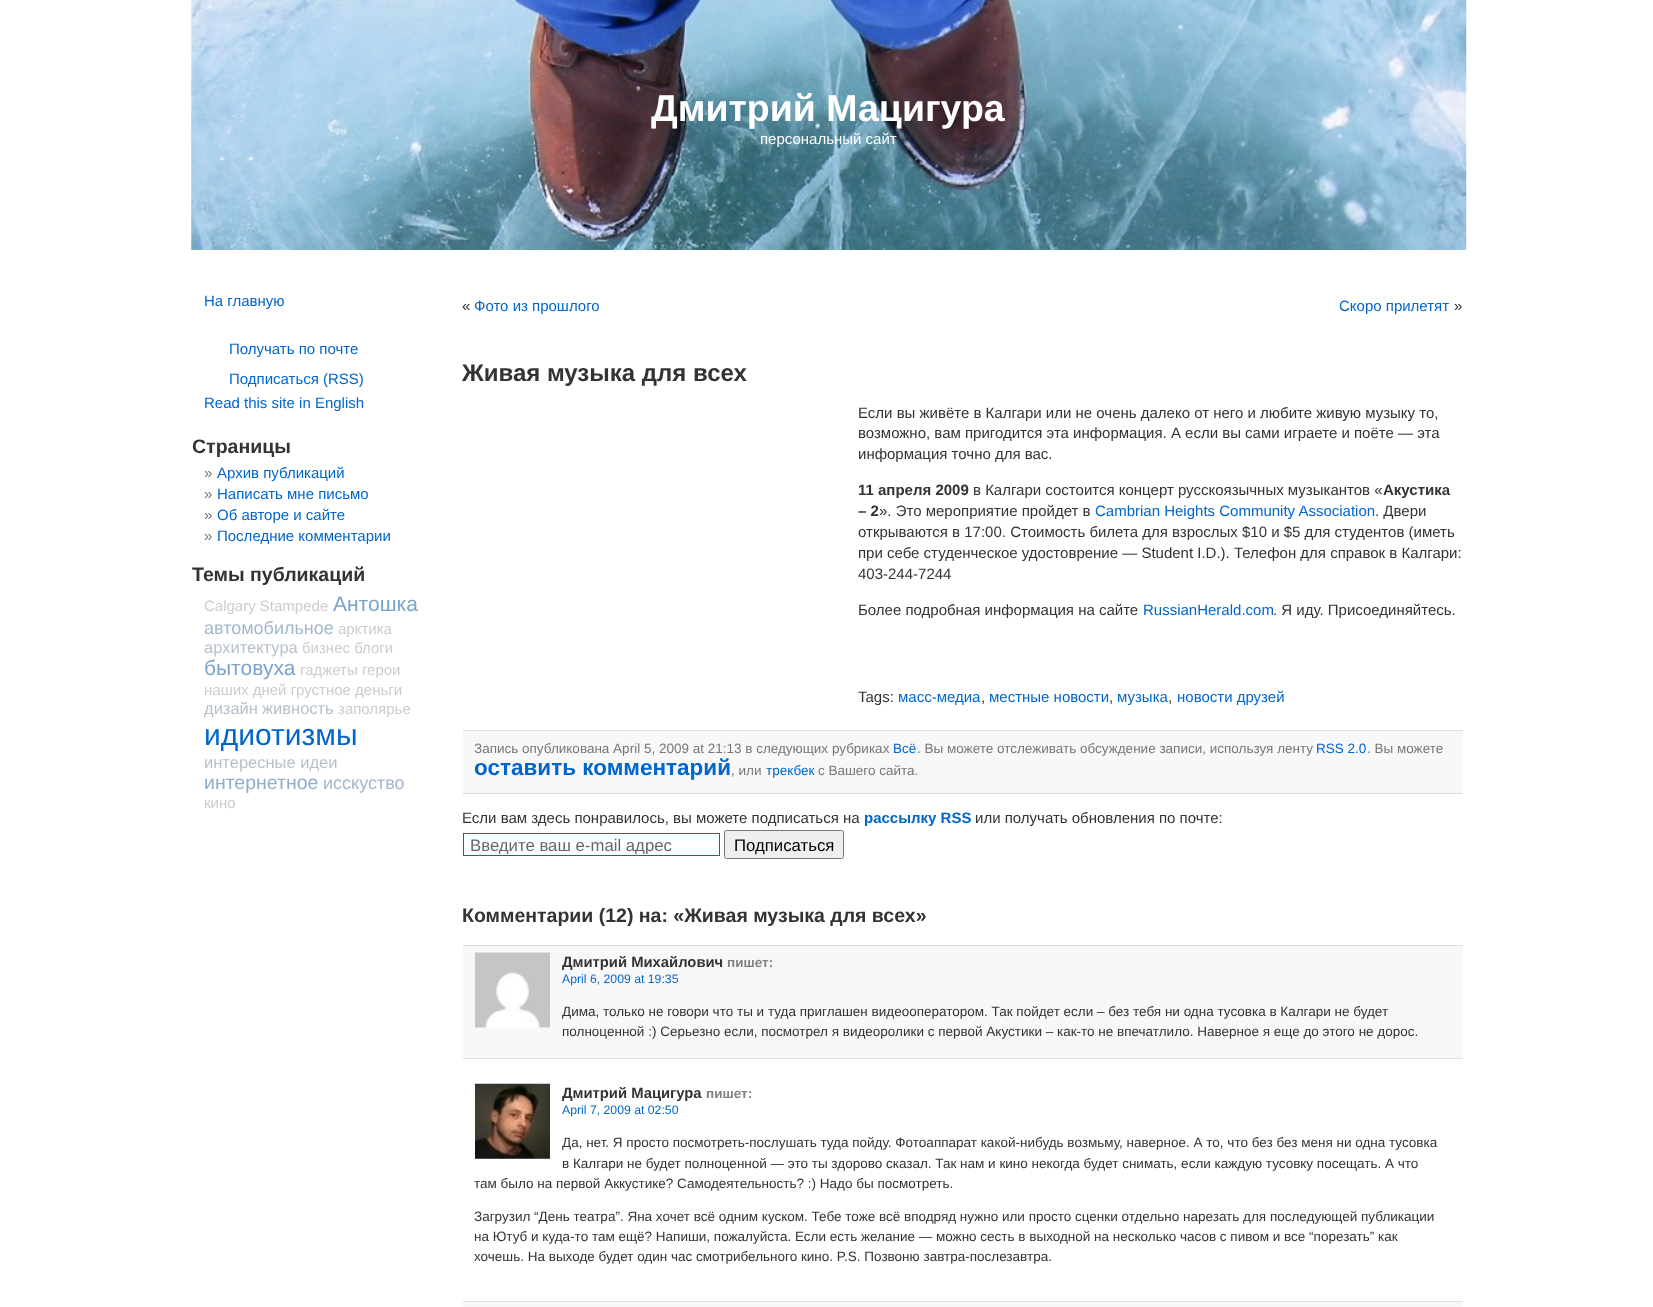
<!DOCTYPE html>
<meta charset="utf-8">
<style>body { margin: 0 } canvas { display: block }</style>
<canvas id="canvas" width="1653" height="1307"></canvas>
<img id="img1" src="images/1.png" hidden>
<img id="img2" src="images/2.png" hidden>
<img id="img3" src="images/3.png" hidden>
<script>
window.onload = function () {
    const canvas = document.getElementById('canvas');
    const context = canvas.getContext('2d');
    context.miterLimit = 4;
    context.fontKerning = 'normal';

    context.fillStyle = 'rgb(255, 255, 255)';
    context.fillRect(0, 0, 1653, 1307);
    context.drawImage(document.getElementById('img1'), 191, 0, 1276, 250);
    context.fillStyle = 'rgb(248, 248, 248)';
    context.fillRect(463, 731, 1000, 62);
    context.fillStyle = 'rgb(221, 221, 221)';
    context.fillRect(463, 730, 1000, 1);
    context.fillRect(463, 793, 1000, 1);
    context.strokeStyle = 'rgb(0, 102, 204)';
    context.strokeRect(463.5, 833.5, 256, 22);
    context.fillStyle = 'rgb(239, 239, 239)';
    context.beginPath();
    context.roundRect(724.5, 830.5, 119, 28, 2);
    context.fill();
    context.strokeStyle = 'rgb(118, 118, 118)';
    context.stroke();
    context.fillStyle = 'rgb(248, 248, 248)';
    context.fillRect(463, 946, 1000, 112);
    context.fillStyle = 'rgb(221, 221, 221)';
    context.fillRect(463, 945, 1000, 1);
    context.fillRect(463, 1058, 1000, 1);
    context.drawImage(document.getElementById('img2'), 475, 952, 75, 76);
    context.drawImage(document.getElementById('img3'), 475, 1083, 75, 76);
    context.fillStyle = 'rgb(248, 248, 248)';
    context.fillRect(463, 1302, 1000, 5);
    context.fillStyle = 'rgb(221, 221, 221)';
    context.fillRect(463, 1301, 1000, 1);
    context.font = 'bold 37.5px Liberation Sans';
    context.fillStyle = 'rgb(255, 255, 255)';
    context.fillText('Дмитрий Мацигура', 651, 121);
    context.font = '15px Liberation Sans';
    context.fillText('персональный сайт', 760, 144);
    context.fillStyle = 'rgb(0, 102, 204)';
    context.fillText('На главную', 204, 306);
    context.fillText('Получать по почте', 229, 354);
    context.fillText('Подписаться (RSS)', 229, 384);
    context.fillText('Read this site in English', 204, 408);
    context.font = 'bold 19.5px Liberation Sans';
    context.fillStyle = 'rgb(51, 51, 51)';
    context.fillText('Страницы', 192, 453);
    context.font = '15px Liberation Sans';
    context.fillStyle = 'rgb(119, 119, 119)';
    context.fillText('»', 204, 478);
    context.fillStyle = 'rgb(0, 102, 204)';
    context.fillText('Архив публикаций', 217, 478);
    context.fillStyle = 'rgb(119, 119, 119)';
    context.fillText('»', 204, 499);
    context.fillStyle = 'rgb(0, 102, 204)';
    context.fillText('Написать мне письмо', 217, 499);
    context.fillStyle = 'rgb(119, 119, 119)';
    context.fillText('»', 204, 520);
    context.fillStyle = 'rgb(0, 102, 204)';
    context.fillText('Об авторе и сайте', 217, 520);
    context.fillStyle = 'rgb(119, 119, 119)';
    context.fillText('»', 204, 541);
    context.fillStyle = 'rgb(0, 102, 204)';
    context.fillText('Последние комментарии', 217, 541);
    context.font = 'bold 19.5px Liberation Sans';
    context.fillStyle = 'rgb(51, 51, 51)';
    context.fillText('Темы публикаций', 192, 581);
    context.font = '15px Liberation Sans';
    context.fillStyle = 'rgb(204, 204, 204)';
    context.fillText('Calgary Stampede', 204, 611);
    context.font = '21px Liberation Sans';
    context.fillStyle = 'rgb(122, 163, 204)';
    context.fillText('Антошка', 333, 611);
    context.font = '18px Liberation Sans';
    context.fillStyle = 'rgb(163, 183, 204)';
    context.fillText('автомобильное', 204, 634);
    context.font = '15px Liberation Sans';
    context.fillStyle = 'rgb(204, 204, 204)';
    context.fillText('арктика', 338, 634);
    context.font = '16.5px Liberation Sans';
    context.fillStyle = 'rgb(183, 193, 204)';
    context.fillText('архитектура', 204, 653);
    context.font = '15px Liberation Sans';
    context.fillStyle = 'rgb(204, 204, 204)';
    context.fillText('бизнес блоги', 302, 653);
    context.font = '21px Liberation Sans';
    context.fillStyle = 'rgb(122, 163, 204)';
    context.fillText('бытовуха', 204, 675);
    context.font = '15px Liberation Sans';
    context.fillStyle = 'rgb(204, 204, 204)';
    context.fillText('гаджеты герои', 300, 675);
    context.fillText('наших дней грустное деньги', 204, 695);
    context.font = '16.5px Liberation Sans';
    context.fillStyle = 'rgb(183, 193, 204)';
    context.fillText('дизайн', 204, 714);
    context.fillText('живность', 262, 714);
    context.font = '15px Liberation Sans';
    context.fillStyle = 'rgb(204, 204, 204)';
    context.fillText('заполярье', 338, 714);
    context.font = '30px Liberation Sans';
    context.fillStyle = 'rgb(0, 102, 204)';
    context.fillText('идиотизмы', 204, 745);
    context.font = '16.5px Liberation Sans';
    context.fillStyle = 'rgb(183, 193, 204)';
    context.fillText('интересные идеи', 204, 768);
    context.font = '19.5px Liberation Sans';
    context.fillStyle = 'rgb(142, 173, 204)';
    context.fillText('интернетное', 204, 789);
    context.font = '18px Liberation Sans';
    context.fillStyle = 'rgb(163, 183, 204)';
    context.fillText('исскуство', 323, 789);
    context.font = '15px Liberation Sans';
    context.fillStyle = 'rgb(204, 204, 204)';
    context.fillText('кино', 204, 808);
    context.fillStyle = 'rgb(51, 51, 51)';
    context.fillText('«', 462, 311);
    context.fillStyle = 'rgb(0, 102, 204)';
    context.fillText('Фото из прошлого', 474, 311);
    context.fillText('Скоро прилетят', 1339, 311);
    context.fillStyle = 'rgb(51, 51, 51)';
    context.fillText('»', 1454, 311);
    context.font = 'bold 24px Liberation Sans';
    context.fillText('Живая музыка для всех', 462, 381);
    context.font = '15px Liberation Sans';
    context.fillText('Если вы живёте в Калгари или не очень далеко от него и любите живую музыку то,', 858, 418);
    context.fillText('возможно, вам пригодится эта информация. А если вы сами играете и поёте — эта', 858, 438);
    context.fillText('информация точно для вас.', 858, 459);
    context.font = 'bold 15px Liberation Sans';
    context.fillText('11 апреля 2009', 858, 495);
    context.font = '15px Liberation Sans';
    context.fillText('в Калгари состоится концерт русскоязычных музыкантов «', 973, 495);
    context.font = 'bold 15px Liberation Sans';
    context.fillText('Акустика', 1383, 495);
    context.fillText('– 2', 858, 516);
    context.font = '15px Liberation Sans';
    context.fillText('». Это мероприятие пройдет в', 879, 516);
    context.fillStyle = 'rgb(0, 102, 204)';
    context.fillText('Сambrian Heights Community Association', 1095, 516);
    context.fillStyle = 'rgb(51, 51, 51)';
    context.fillText('. Двери', 1375, 516);
    context.fillText('открываются в 17:00. Стоимость билета для взрослых $10 и $5 для студентов (иметь', 858, 537);
    context.fillText('при себе студенческое удостоврение — Student I.D.). Телефон для справок в Калгари:', 858, 558);
    context.fillText('403-244-7244', 858, 579);
    context.fillText('Более подробная информация на сайте', 858, 615);
    context.fillStyle = 'rgb(0, 102, 204)';
    context.fillText('RussianHerald.com', 1143, 615);
    context.fillStyle = 'rgb(51, 51, 51)';
    context.fillText('. Я иду. Присоединяйтесь.', 1273, 615);
    context.fillText('Tags:', 858, 702);
    context.fillStyle = 'rgb(0, 102, 204)';
    context.fillText('масс-медиа', 898, 702);
    context.fillStyle = 'rgb(51, 51, 51)';
    context.fillText(',', 981, 702);
    context.fillStyle = 'rgb(0, 102, 204)';
    context.fillText('местные новости', 989, 702);
    context.fillStyle = 'rgb(51, 51, 51)';
    context.fillText(',', 1109, 702);
    context.fillStyle = 'rgb(0, 102, 204)';
    context.fillText('музыка', 1117, 702);
    context.fillStyle = 'rgb(51, 51, 51)';
    context.fillText(',', 1168, 702);
    context.fillStyle = 'rgb(0, 102, 204)';
    context.fillText('новости друзей', 1177, 702);
    context.font = '13.5px Liberation Sans';
    context.fillStyle = 'rgb(119, 119, 119)';
    context.fillText('Запись опубликована April 5, 2009 at 21:13 в следующих рубриках', 474, 753);
    context.fillStyle = 'rgb(0, 102, 204)';
    context.fillText('Всё', 893, 753);
    context.fillStyle = 'rgb(119, 119, 119)';
    context.fillText('. Вы можете отслеживать обсуждение записи, используя ленту', 917, 753);
    context.fillStyle = 'rgb(0, 102, 204)';
    context.fillText('RSS 2.0', 1316, 753);
    context.fillStyle = 'rgb(119, 119, 119)';
    context.fillText('. Вы можете', 1367, 753);
    context.font = 'bold 22.5px Liberation Sans';
    context.fillStyle = 'rgb(0, 102, 204)';
    context.fillText('оставить комментарий', 474, 775);
    context.font = '13.5px Liberation Sans';
    context.fillStyle = 'rgb(119, 119, 119)';
    context.fillText(', или', 731, 775);
    context.fillStyle = 'rgb(0, 102, 204)';
    context.fillText('трекбек', 766, 775);
    context.fillStyle = 'rgb(119, 119, 119)';
    context.fillText('с Вашего сайта.', 818, 775);
    context.font = '15px Liberation Sans';
    context.fillStyle = 'rgb(51, 51, 51)';
    context.fillText('Если вам здесь понравилось, вы можете подписаться на', 462, 823);
    context.font = 'bold 15px Liberation Sans';
    context.fillStyle = 'rgb(0, 102, 204)';
    context.fillText('рассылку RSS', 864, 823);
    context.font = '15px Liberation Sans';
    context.fillStyle = 'rgb(51, 51, 51)';
    context.fillText('или получать обновления по почте:', 975, 823);
    context.save();
    context.beginPath();
    context.rect(466, 835, 250, 19);
    context.clip();
    context.font = '16.75px Liberation Sans';
    context.fillStyle = 'rgb(102, 102, 102)';
    context.fillText('Введите ваш e-mail адрес', 470, 851);
    context.restore();
    context.font = '16.75px Liberation Sans';
    context.fillStyle = 'rgb(0, 0, 0)';
    context.fillText('Подписаться', 734, 851);
    context.font = 'bold 19.5px Liberation Sans';
    context.fillStyle = 'rgb(51, 51, 51)';
    context.fillText('Комментарии (12) на: «Живая музыка для всех»', 462, 922);
    context.font = 'bold 14.8px Liberation Sans';
    context.fillText('Дмитрий Михайлович', 562, 967);
    context.font = 'bold 13.5px Liberation Sans';
    context.fillStyle = 'rgb(128, 128, 128)';
    context.fillText('пишет:', 727, 967);
    context.font = '12.25px Liberation Sans';
    context.fillStyle = 'rgb(0, 102, 204)';
    context.fillText('April 6, 2009 at 19:35', 562, 983);
    context.font = '13.5px Liberation Sans';
    context.fillStyle = 'rgb(51, 51, 51)';
    context.fillText('Дима, только не говори что ты и туда приглашен видеооператором. Так пойдет если – без тебя ни одна тусовка в Калгари не будет', 562, 1016);
    context.fillText('полноценной :) Серьезно если, посмотрел я видеоролики с первой Акустики – как-то не впечатлило. Наверное я еще до этого не дорос.', 562, 1036);
    context.font = 'bold 14.8px Liberation Sans';
    context.fillText('Дмитрий Мацигура', 562, 1098);
    context.font = 'bold 13.5px Liberation Sans';
    context.fillStyle = 'rgb(128, 128, 128)';
    context.fillText('пишет:', 706, 1098);
    context.font = '12.25px Liberation Sans';
    context.fillStyle = 'rgb(0, 102, 204)';
    context.fillText('April 7, 2009 at 02:50', 562, 1114);
    context.font = '13.5px Liberation Sans';
    context.fillStyle = 'rgb(51, 51, 51)';
    context.fillText('Да, нет. Я просто посмотреть-послушать туда пойду. Фотоаппарат какой-нибудь возмьму, наверное. А то, что без без меня ни одна тусовка', 562, 1147);
    context.fillText('в Калгари не будет полноценной — это ты здорово сказал. Так нам и кино некогда будет снимать, если каждую тусовку посещать. А что', 562, 1168);
    context.fillText('там было на первой Аккустике? Самодеятельность? :) Надо бы посмотреть.', 474, 1188);
    context.fillText('Загрузил “День театра”. Яна хочет всё одним куском. Тебе тоже всё вподряд нужно или просто сценки отдельно нарезать для последующей публикации', 474, 1221);
    context.fillText('на Ютуб и куда-то там ещё? Напиши, пожалуйста. Если есть желание — можно сесть в выходной на несколько часов с пивом и все “порезать” как', 474, 1241);
    context.fillText('хочешь. На выходе будет один час смотрибельного кино. P.S. Позвоню завтра-послезавтра.', 474, 1261);
};
</script>
